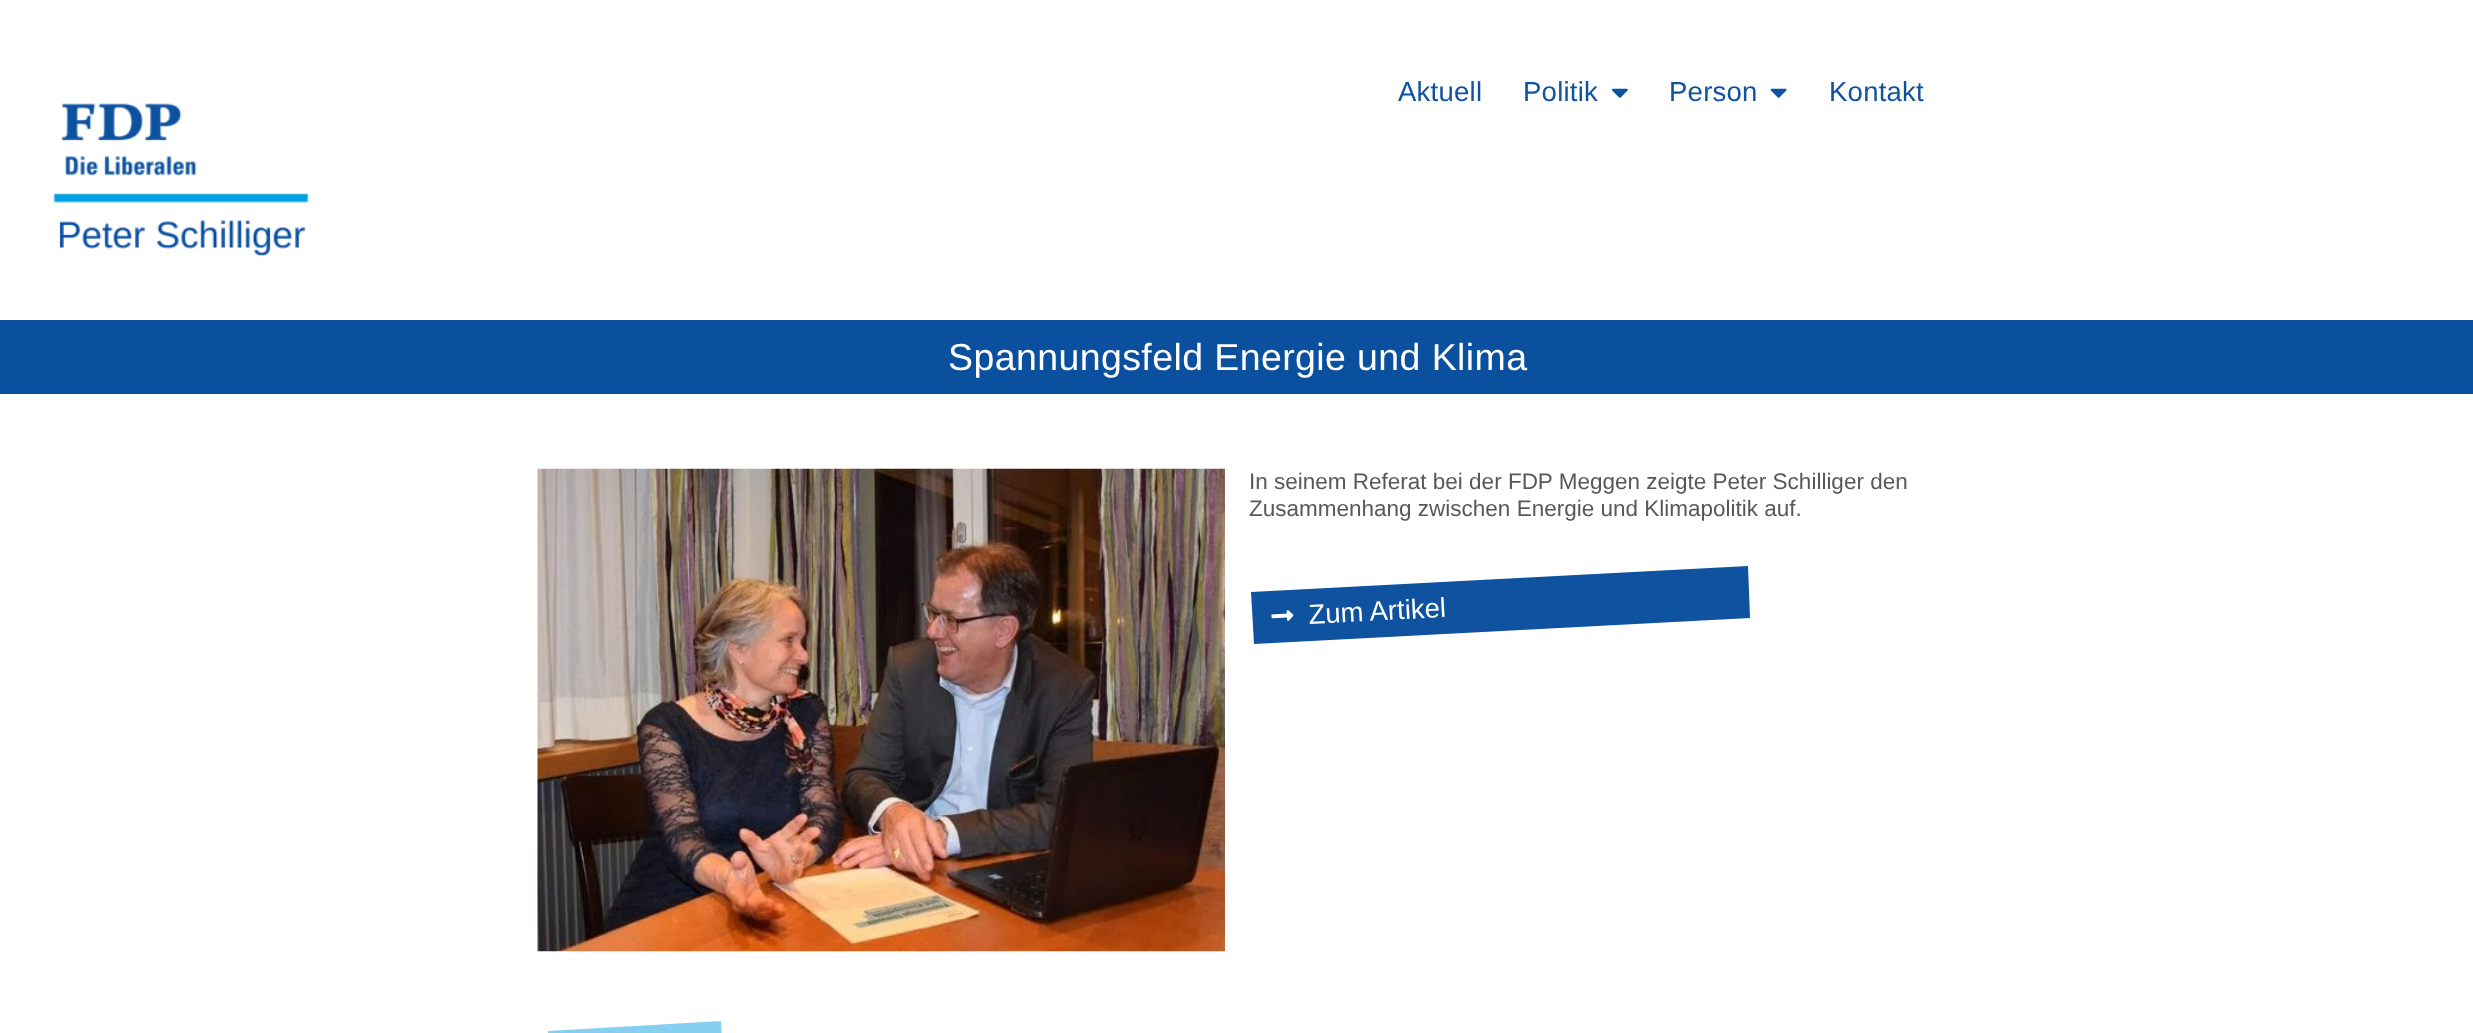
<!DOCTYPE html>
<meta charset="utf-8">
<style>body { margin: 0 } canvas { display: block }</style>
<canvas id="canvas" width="2473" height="1033"></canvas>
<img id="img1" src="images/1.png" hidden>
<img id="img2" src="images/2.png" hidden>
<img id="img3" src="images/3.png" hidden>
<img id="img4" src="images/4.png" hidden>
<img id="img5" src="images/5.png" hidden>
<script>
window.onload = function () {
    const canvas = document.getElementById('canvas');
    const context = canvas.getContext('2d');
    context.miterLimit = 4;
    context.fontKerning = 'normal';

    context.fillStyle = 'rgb(255, 255, 255)';
    context.fillRect(0, 0, 2473, 1033);
    context.drawImage(document.getElementById('img1'), 1611, 88, 17, 10);
    context.drawImage(document.getElementById('img2'), 1770, 88, 17, 10);
    context.drawImage(document.getElementById('img3'), 53, 103, 256, 154);
    context.fillStyle = 'rgb(11, 80, 159)';
    context.fillRect(0, 320, 2473, 74);
    context.drawImage(document.getElementById('img4'), 537, 468, 688, 484);
    context.fillStyle = 'rgb(15, 82, 160)';
    context.beginPath();
    context.moveTo(1251, 592);
    context.lineTo(1748, 566);
    context.lineTo(1750, 618);
    context.lineTo(1254, 644);
    context.closePath();
    context.fill();
    context.drawImage(document.getElementById('img5'), 1271, 610, 23, 11);
    context.fillStyle = 'rgb(133, 207, 240)';
    context.beginPath();
    context.moveTo(548, 1031);
    context.lineTo(721, 1021);
    context.lineTo(724, 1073);
    context.lineTo(551, 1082);
    context.closePath();
    context.fill();
    context.letterSpacing = '0.25px';
    context.font = '27.5px Liberation Sans';
    context.fillStyle = 'rgb(15, 82, 160)';
    context.fillText('Aktuell', 1398, 101);
    context.fillText('Politik', 1523, 101);
    context.fillText('Person', 1669, 101);
    context.fillText('Kontakt', 1829, 101);
    context.letterSpacing = '0.4px';
    context.font = '37.5px Liberation Sans';
    context.fillStyle = 'rgb(255, 255, 255)';
    context.fillText('Spannungsfeld Energie und Klima', 948, 370);
    context.letterSpacing = '0px';
    context.font = '22.5px Liberation Sans';
    context.fillStyle = 'rgb(88, 88, 88)';
    context.fillText('In seinem Referat bei der FDP Meggen zeigte Peter Schilliger den', 1249, 489);
    context.fillText('Zusammenhang zwischen Energie und Klimapolitik auf.', 1249, 516);
    context.font = '27.5px Liberation Sans';
    context.fillStyle = 'rgb(255, 255, 255)';
    context.save();
    context.translate(1309, 624);
    context.rotate(-3 * Math.PI / 180);
    context.fillText('Zum Artikel', 0, 0);
    context.restore();
};
</script>
